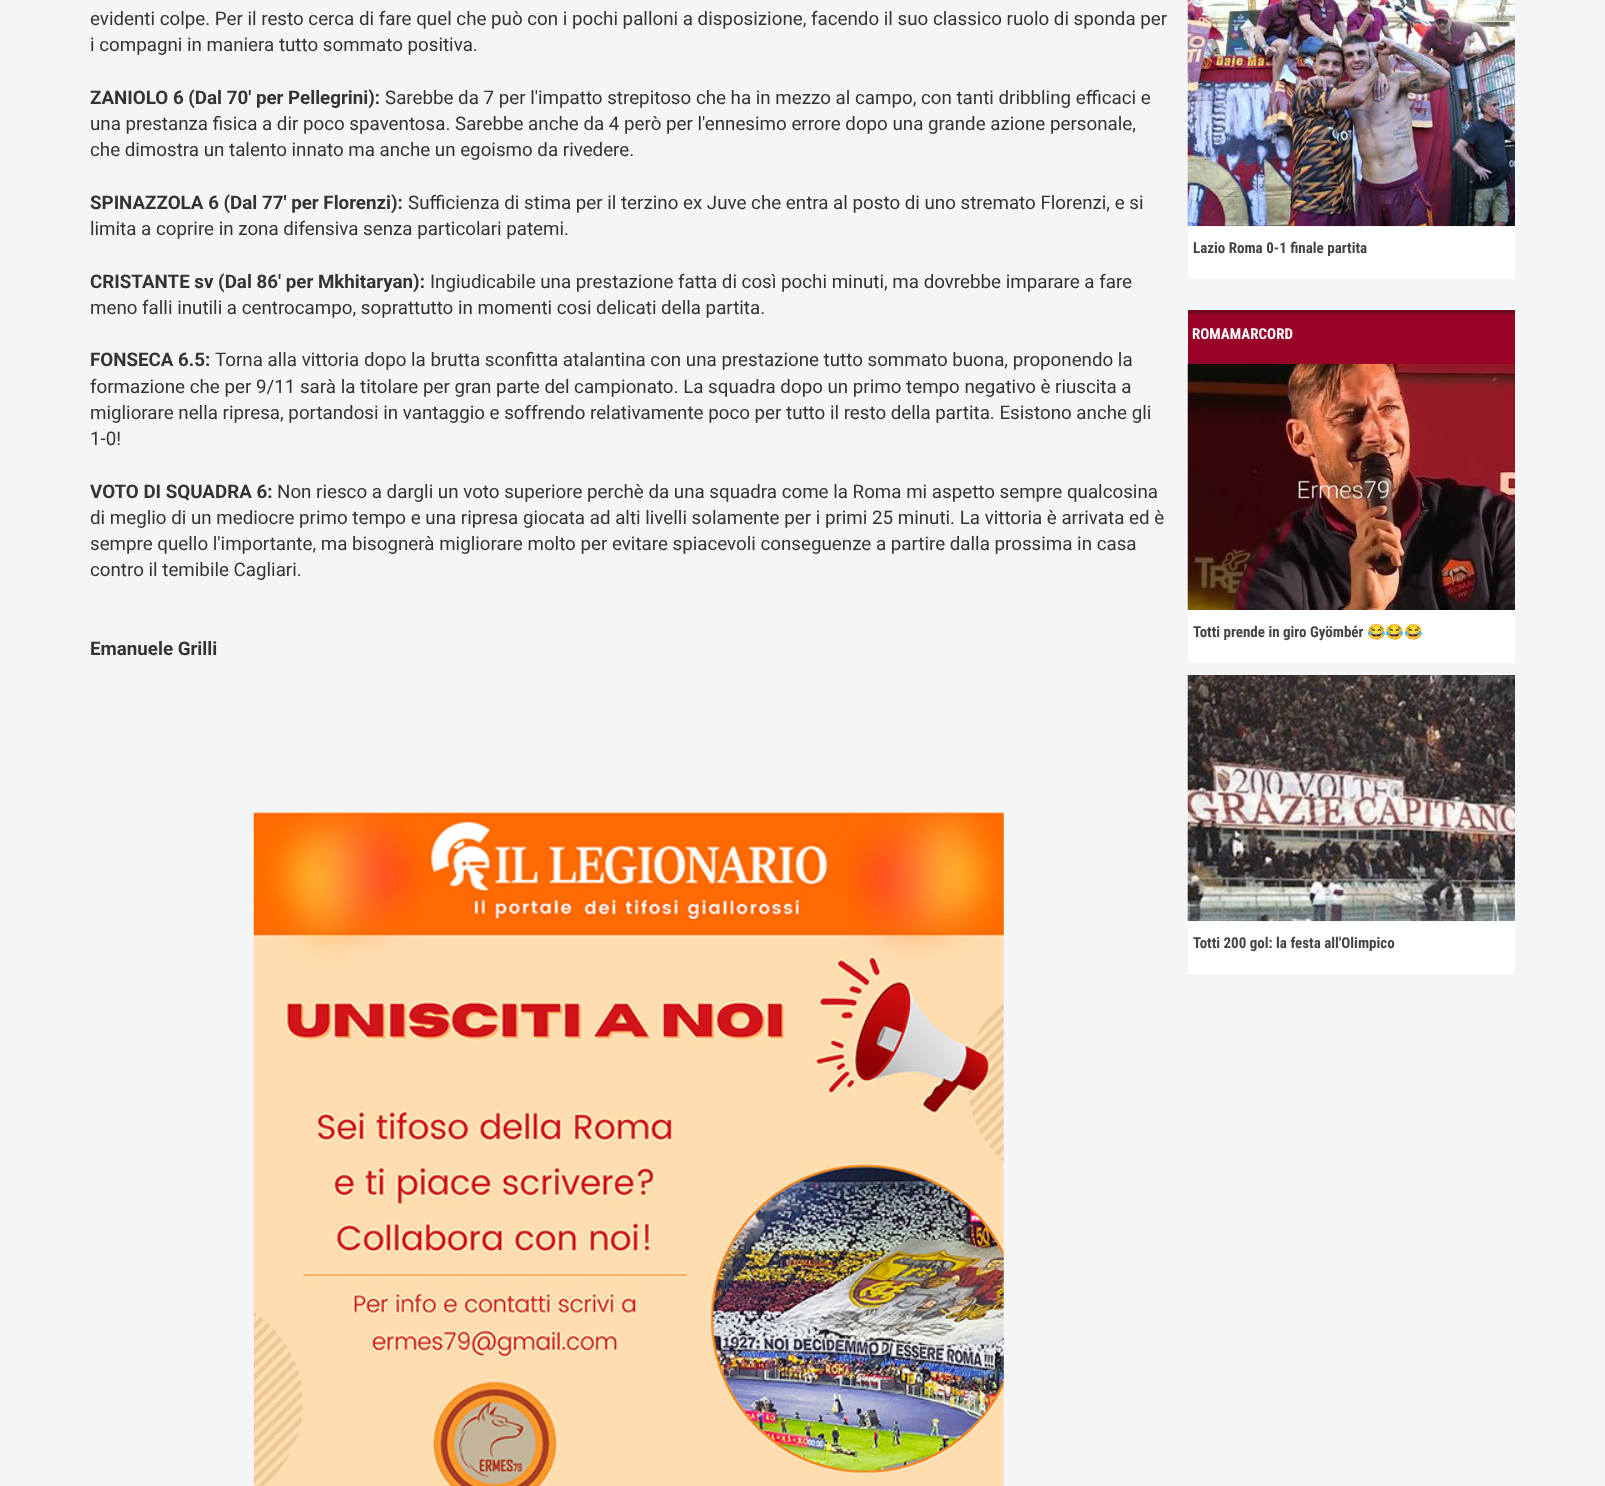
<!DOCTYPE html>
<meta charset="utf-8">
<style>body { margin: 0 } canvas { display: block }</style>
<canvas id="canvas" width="1605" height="1486"></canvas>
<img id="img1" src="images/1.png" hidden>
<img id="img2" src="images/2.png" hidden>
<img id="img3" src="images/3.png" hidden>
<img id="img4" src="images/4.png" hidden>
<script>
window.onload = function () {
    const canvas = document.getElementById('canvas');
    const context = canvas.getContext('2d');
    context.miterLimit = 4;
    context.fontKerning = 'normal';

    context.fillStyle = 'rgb(244, 245, 247)';
    context.fillRect(0, 0, 1605, 1486);
    context.drawImage(document.getElementById('img1'), 253, 812, 751, 674);
    context.fillStyle = 'rgb(255, 255, 255)';
    context.fillRect(1188, 226, 327, 53);
    context.drawImage(document.getElementById('img2'), 1187, 0, 328, 227);
    context.fillStyle = 'rgb(153, 3, 40)';
    context.fillRect(1188, 314, 327, 50);
    context.fillStyle = 'rgb(115, 8, 34)';
    context.fillRect(1188, 310, 327, 4);
    context.drawImage(document.getElementById('img3'), 1187, 363, 328, 247);
    context.fillStyle = 'rgb(255, 255, 255)';
    context.fillRect(1188, 610, 327, 53);
    context.fillRect(1188, 921, 327, 53);
    context.drawImage(document.getElementById('img4'), 1187, 675, 328, 247);
    context.font = '18.75px Roboto';
    context.fillStyle = 'rgb(51, 51, 51)';
    context.fillText('evidenti colpe. Per il resto cerca di fare quel che può con i pochi palloni a disposizione, facendo il suo classico ruolo di sponda per', 90, 25);
    context.fillText('i compagni in maniera tutto sommato positiva.', 90, 51);
    context.font = 'bold 18.75px Roboto';
    context.fillText('ZANIOLO 6 (Dal 70\' per Pellegrini):', 90, 104);
    context.font = '18.75px Roboto';
    context.fillText('Sarebbe da 7 per l\'impatto strepitoso che ha in mezzo al campo, con tanti dribbling efficaci e', 385, 104);
    context.fillText('una prestanza fisica a dir poco spaventosa. Sarebbe anche da 4 però per l\'ennesimo errore dopo una grande azione personale,', 90, 130);
    context.fillText('che dimostra un talento innato ma anche un egoismo da rivedere.', 90, 156);
    context.font = 'bold 18.75px Roboto';
    context.fillText('SPINAZZOLA 6 (Dal 77\' per Florenzi):', 90, 209);
    context.font = '18.75px Roboto';
    context.fillText('Sufficienza di stima per il terzino ex Juve che entra al posto di uno stremato Florenzi, e si', 408, 209);
    context.fillText('limita a coprire in zona difensiva senza particolari patemi.', 90, 235);
    context.font = 'bold 18.75px Roboto';
    context.fillText('CRISTANTE sv (Dal 86\' per Mkhitaryan):', 90, 288);
    context.font = '18.75px Roboto';
    context.fillText('Ingiudicabile una prestazione fatta di così pochi minuti, ma dovrebbe imparare a fare', 430, 288);
    context.fillText('meno falli inutili a centrocampo, soprattutto in momenti cosi delicati della partita.', 90, 314);
    context.font = 'bold 18.75px Roboto';
    context.fillText('FONSECA 6.5:', 90, 366);
    context.font = '18.75px Roboto';
    context.fillText('Torna alla vittoria dopo la brutta sconfitta atalantina con una prestazione tutto sommato buona, proponendo la', 215, 366);
    context.fillText('formazione che per 9/11 sarà la titolare per gran parte del campionato. La squadra dopo un primo tempo negativo è riuscita a', 90, 393);
    context.fillText('migliorare nella ripresa, portandosi in vantaggio e soffrendo relativamente poco per tutto il resto della partita. Esistono anche gli', 90, 419);
    context.fillText('1-0!', 90, 445);
    context.font = 'bold 18.75px Roboto';
    context.fillText('VOTO DI SQUADRA 6:', 90, 498);
    context.font = '18.75px Roboto';
    context.fillText('Non riesco a dargli un voto superiore perchè da una squadra come la Roma mi aspetto sempre qualcosina', 277, 498);
    context.fillText('di meglio di un mediocre primo tempo e una ripresa giocata ad alti livelli solamente per i primi 25 minuti. La vittoria è arrivata ed è', 90, 524);
    context.fillText('sempre quello l\'importante, ma bisognerà migliorare molto per evitare spiacevoli conseguenze a partire dalla prossima in casa', 90, 550);
    context.fillText('contro il temibile Cagliari.', 90, 576);
    context.font = 'bold 18.75px Roboto';
    context.fillText('Emanuele Grilli', 90, 655);
    context.font = 'bold 15px Roboto Condensed';
    context.fillStyle = 'rgb(68, 68, 68)';
    context.fillText('Lazio Roma 0-1 finale partita', 1193, 253);
    context.fillStyle = 'rgb(255, 255, 255)';
    context.fillText('ROMAMARCORD', 1192, 339);
    context.fillStyle = 'rgb(68, 68, 68)';
    context.fillText('Totti prende in giro Gyömbér', 1193, 637);
    context.font = 'bold 15px Noto Color Emoji';
    context.fillText('😂😂😂', 1367, 637);
    context.font = 'bold 15px Roboto Condensed';
    context.fillText('Totti 200 gol: la festa all\'Olimpico', 1193, 948);
};
</script>
